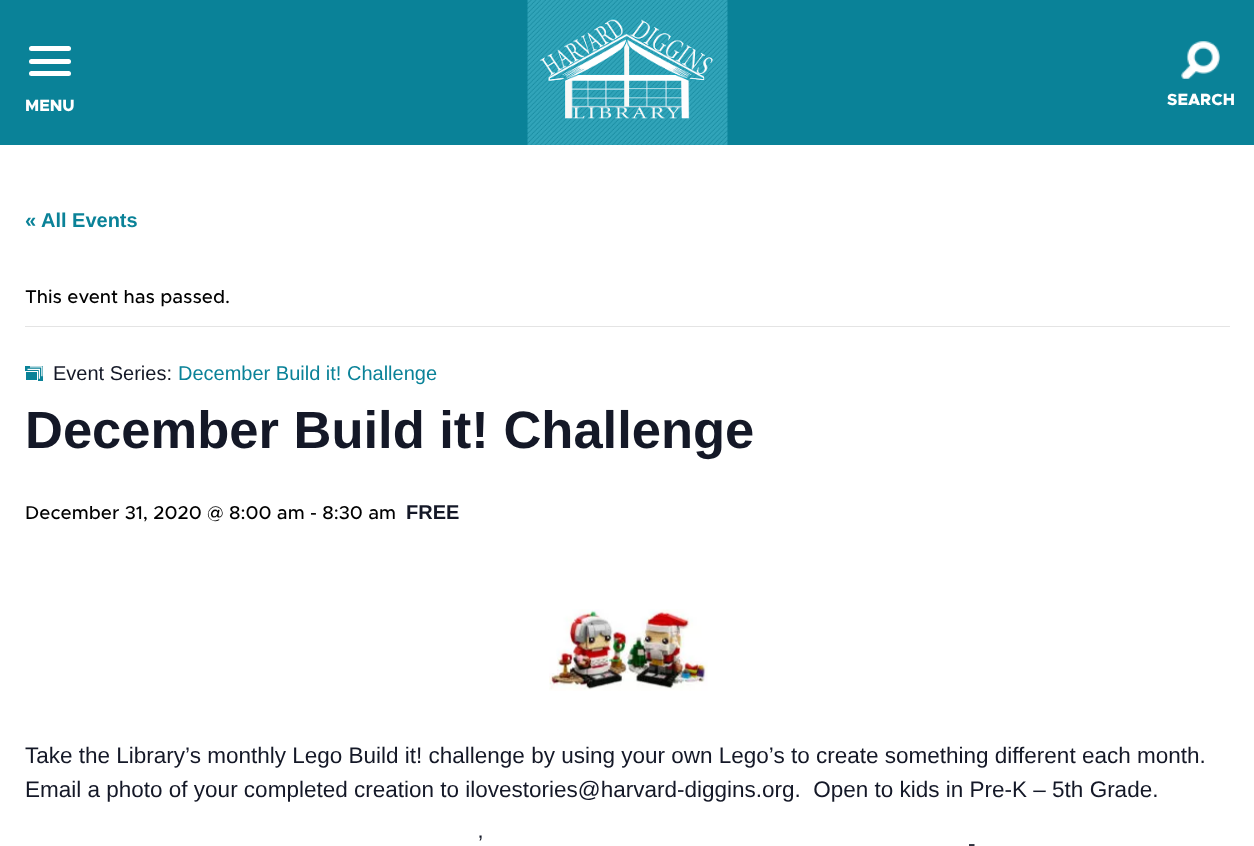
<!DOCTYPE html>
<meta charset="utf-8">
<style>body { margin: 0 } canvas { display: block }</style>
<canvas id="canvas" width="1254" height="846"></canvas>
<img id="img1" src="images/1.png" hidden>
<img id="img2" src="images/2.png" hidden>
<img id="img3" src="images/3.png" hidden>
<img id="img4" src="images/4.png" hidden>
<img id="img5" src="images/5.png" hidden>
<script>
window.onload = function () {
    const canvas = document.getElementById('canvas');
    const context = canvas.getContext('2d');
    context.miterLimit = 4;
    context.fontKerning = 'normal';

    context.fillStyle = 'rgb(255, 255, 255)';
    context.fillRect(0, 0, 1254, 846);
    context.fillStyle = 'rgb(10, 130, 152)';
    context.fillRect(0, 0, 1254, 145);
    context.drawImage(document.getElementById('img1'), 527, 0, 201, 145);
    context.drawImage(document.getElementById('img2'), 540, 18, 173, 101);
    context.fillStyle = 'rgb(255, 255, 255)';
    context.beginPath();
    context.roundRect(29, 59, 42, 5, 2.5);
    context.fill();
    context.beginPath();
    context.roundRect(29, 46, 42, 5, 2.5);
    context.fill();
    context.beginPath();
    context.roundRect(29, 71, 42, 5, 2.5);
    context.fill();
    context.drawImage(document.getElementById('img3'), 1181, 41, 39, 38);
    context.fillStyle = 'rgb(228, 228, 228)';
    context.fillRect(25, 326, 1205, 1);
    context.fillStyle = 'rgb(10, 130, 152)';
    context.fillRect(25, 366, 18, 15);
    context.drawImage(document.getElementById('img4'), 25, 366, 18, 15);
    context.drawImage(document.getElementById('img5'), 549, 609, 159, 82);
    context.font = '800 16.25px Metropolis';
    context.fillStyle = 'rgb(255, 255, 255)';
    context.fillText('MENU', 25, 111);
    context.fillText('SEARCH', 1167, 105);
    context.font = 'bold 20px Liberation Sans';
    context.fillStyle = 'rgb(10, 130, 152)';
    context.fillText('« All Events', 25, 227);
    context.font = '500 18.75px Metropolis';
    context.fillStyle = 'rgb(0, 0, 0)';
    context.fillText('This event has passed.', 25, 303);
    context.font = '20px Liberation Sans';
    context.fillStyle = 'rgb(20, 24, 39)';
    context.fillText('Event Series:', 53, 380);
    context.fillStyle = 'rgb(10, 130, 152)';
    context.fillText('December Build it! Challenge', 178, 380);
    context.font = 'bold 52.5px Liberation Sans';
    context.fillStyle = 'rgb(20, 24, 39)';
    context.fillText('December Build it! Challenge', 25, 448);
    context.font = '500 18.75px Metropolis';
    context.fillStyle = 'rgb(0, 0, 0)';
    context.fillText('December 31, 2020 @ 8:00 am - 8:30 am', 25, 519);
    context.font = 'bold 20px Liberation Sans';
    context.fillStyle = 'rgb(20, 24, 39)';
    context.fillText('FREE', 406, 519);
    context.font = '22.5px Liberation Sans';
    context.fillText('Take the Library’s monthly Lego Build it! challenge by using your own Lego’s to create something different each month.', 25, 763);
    context.fillText('Email a photo of your completed creation to ilovestories@harvard-diggins.org.  Open to kids in Pre-K – 5th Grade.', 25, 797);
    context.fillText('’', 478, 851);
    context.fillText('-', 968, 851);
};
</script>
